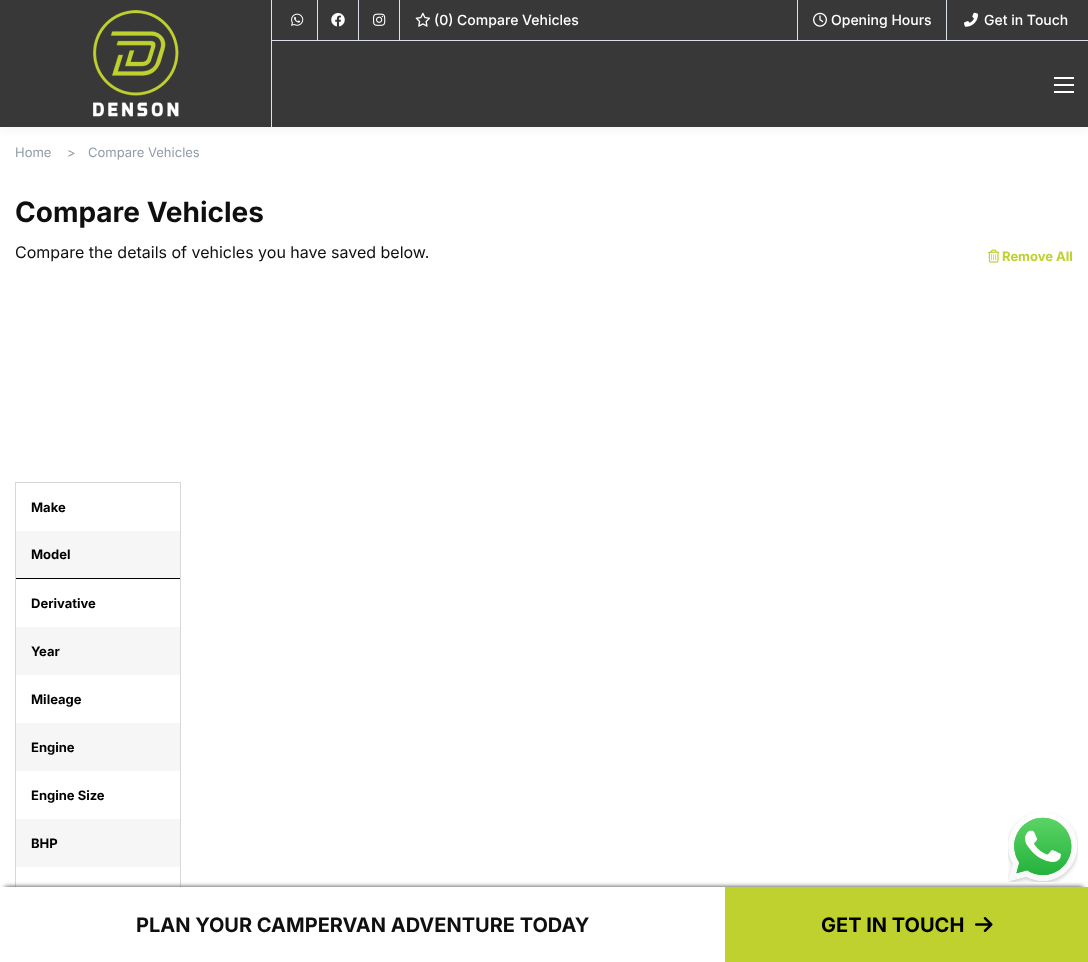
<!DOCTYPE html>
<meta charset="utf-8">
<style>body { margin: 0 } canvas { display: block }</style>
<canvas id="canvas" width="1088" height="962"></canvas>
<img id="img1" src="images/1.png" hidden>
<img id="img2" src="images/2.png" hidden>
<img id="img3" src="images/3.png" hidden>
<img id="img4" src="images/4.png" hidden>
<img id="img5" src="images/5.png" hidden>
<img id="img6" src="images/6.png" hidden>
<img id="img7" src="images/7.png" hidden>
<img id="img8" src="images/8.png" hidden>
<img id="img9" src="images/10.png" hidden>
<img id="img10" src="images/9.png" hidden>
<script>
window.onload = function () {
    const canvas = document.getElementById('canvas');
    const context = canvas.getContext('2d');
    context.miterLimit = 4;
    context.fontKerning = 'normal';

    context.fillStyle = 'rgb(255, 255, 255)';
    context.fillRect(0, 0, 1088, 962);
    context.fillStyle = 'rgba(113, 128, 150, 0.08)';
    context.filter = 'blur(4px)';
    context.beginPath();
    context.rect(0, 4, 1088, 127);
    context.fill();
    context.filter = 'none';
    context.fillStyle = 'rgb(56, 56, 56)';
    context.fillRect(0, 0, 1088, 127);
    context.fillStyle = 'rgb(218, 224, 230)';
    context.fillRect(271, 0, 1, 127);
    context.drawImage(document.getElementById('img1'), 93, 10, 86, 107);
    context.fillRect(272, 40, 816, 1);
    context.fillRect(317, 0, 1, 40);
    context.drawImage(document.getElementById('img2'), 291, 13, 13, 13);
    context.fillRect(358, 0, 1, 40);
    context.drawImage(document.getElementById('img3'), 331, 13, 14, 14);
    context.fillRect(399, 0, 1, 40);
    context.drawImage(document.getElementById('img4'), 373, 13, 13, 13);
    context.drawImage(document.getElementById('img5'), 415, 12, 16, 15);
    context.fillRect(797, 0, 1, 40);
    context.drawImage(document.getElementById('img6'), 813, 12, 14, 15);
    context.fillRect(946, 0, 1, 40);
    context.drawImage(document.getElementById('img7'), 964, 12, 14, 15);
    context.fillStyle = 'rgb(255, 255, 255)';
    context.fillRect(1054, 91, 20, 2);
    context.fillRect(1054, 84, 20, 2);
    context.fillRect(1054, 77, 20, 2);
    context.drawImage(document.getElementById('img8'), 988, 249, 12, 14);
    context.strokeStyle = 'rgb(216, 216, 216)';
    context.strokeRect(15.5, 482.5, 165, 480);
    context.fillStyle = 'rgb(246, 246, 246)';
    context.fillRect(16, 531, 164, 47);
    context.fillStyle = 'rgb(0, 0, 0)';
    context.fillRect(16, 578, 164, 1);
    context.fillStyle = 'rgb(246, 246, 246)';
    context.fillRect(16, 627, 164, 48);
    context.fillRect(16, 723, 164, 48);
    context.fillRect(16, 819, 164, 48);
    context.drawImage(document.getElementById('img9'), 1008, 812, 70, 70);
    context.fillStyle = 'rgb(51, 51, 51)';
    context.filter = 'blur(2.5px)';
    context.beginPath();
    context.rect(5, 887, 1078, 65);
    context.fill();
    context.filter = 'none';
    context.fillStyle = 'rgb(255, 255, 255)';
    context.fillRect(0, 887, 725, 75);
    context.fillStyle = 'rgb(191, 209, 46)';
    context.fillRect(725, 887, 363, 75);
    context.drawImage(document.getElementById('img10'), 975, 917, 18, 15);
    context.font = '500 14px Inter';
    context.fillStyle = 'rgb(255, 255, 255)';
    context.fillText('(0) Compare Vehicles', 434, 25);
    context.fillText('Opening Hours', 831, 25);
    context.fillText('Get in Touch', 984, 25);
    context.font = '13px Inter';
    context.fillStyle = 'rgb(145, 155, 167)';
    context.fillText('Home', 15, 157);
    context.fillText('>', 67, 157);
    context.fillText('Compare Vehicles', 88, 157);
    context.font = 'bold 28px Inter';
    context.fillStyle = 'rgb(15, 15, 15)';
    context.fillText('Compare Vehicles', 15, 222);
    context.font = '16px Inter';
    context.fillText('Compare the details of vehicles you have saved below.', 15, 258);
    context.font = 'bold 13px Inter';
    context.fillStyle = 'rgb(191, 209, 46)';
    context.fillText('Remove All', 1002, 261);
    context.fillStyle = 'rgb(0, 0, 0)';
    context.fillText('Make', 31, 512);
    context.fillText('Model', 31, 559);
    context.fillText('Derivative', 31, 608);
    context.fillText('Year', 31, 656);
    context.fillText('Mileage', 31, 704);
    context.fillText('Engine', 31, 752);
    context.fillText('Engine Size', 31, 800);
    context.fillText('BHP', 31, 848);
    context.font = 'bold 20px Inter';
    context.fillStyle = 'rgb(15, 15, 15)';
    context.fillText('PLAN YOUR CAMPERVAN ADVENTURE TODAY', 136, 932);
    context.fillStyle = 'rgb(0, 0, 0)';
    context.fillText('GET IN TOUCH', 821, 932);
};
</script>
